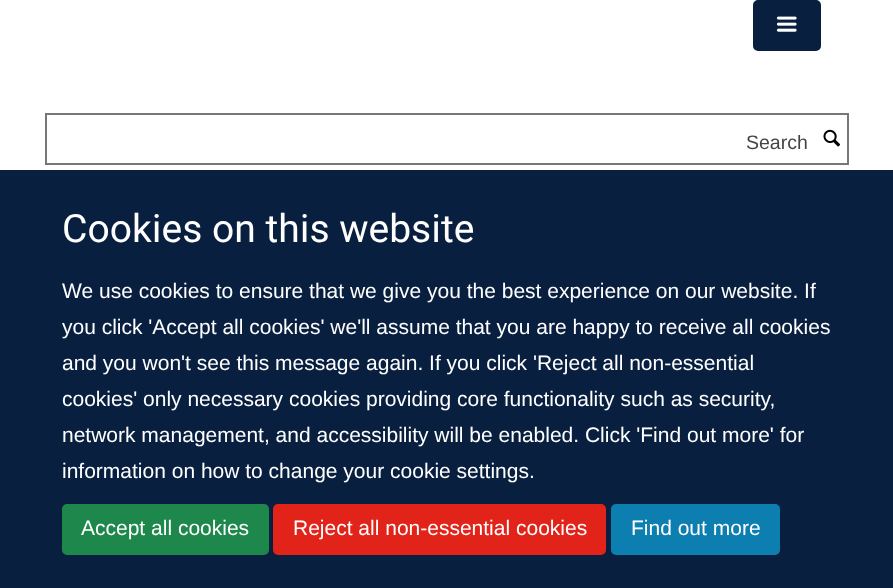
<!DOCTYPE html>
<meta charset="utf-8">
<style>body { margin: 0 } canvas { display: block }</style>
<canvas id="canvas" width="893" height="588"></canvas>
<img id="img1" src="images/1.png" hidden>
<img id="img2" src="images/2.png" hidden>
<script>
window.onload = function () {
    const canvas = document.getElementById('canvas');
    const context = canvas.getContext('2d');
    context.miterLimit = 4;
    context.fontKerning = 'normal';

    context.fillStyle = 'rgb(255, 255, 255)';
    context.fillRect(0, 0, 893, 588);
    context.fillStyle = 'rgb(9, 31, 64)';
    context.beginPath();
    context.roundRect(754, 1, 66, 49, 4);
    context.fill();
    context.strokeStyle = 'rgb(9, 31, 64)';
    context.lineWidth = 2;
    context.stroke();
    context.drawImage(document.getElementById('img1'), 776, 16, 21, 16);
    context.strokeStyle = 'rgb(119, 119, 119)';
    context.strokeRect(46, 114, 802, 50);
    context.drawImage(document.getElementById('img2'), 823, 129, 17, 18);
    context.fillRect(0, 170, 893, 418);
    context.fillStyle = 'rgb(30, 135, 75)';
    context.beginPath();
    context.roundRect(63, 505, 205, 49, 4);
    context.fill();
    context.strokeStyle = 'rgb(30, 135, 75)';
    context.stroke();
    context.fillStyle = 'rgb(226, 35, 26)';
    context.beginPath();
    context.roundRect(274, 505, 331, 49, 4);
    context.fill();
    context.strokeStyle = 'rgb(226, 35, 26)';
    context.stroke();
    context.fillStyle = 'rgb(13, 126, 176)';
    context.beginPath();
    context.roundRect(612, 505, 167, 49, 4);
    context.fill();
    context.strokeStyle = 'rgb(13, 126, 176)';
    context.stroke();
    context.font = '19.5px Liberation Sans';
    context.fillStyle = 'rgb(68, 68, 68)';
    context.fillText('Search', 746, 149);
    context.font = '39px Heebo';
    context.fillStyle = 'rgb(255, 255, 255)';
    context.fillText('Cookies on this website', 62, 242);
    context.font = '21px Liberation Sans';
    context.fillText('We use cookies to ensure that we give you the best experience on our website. If', 62, 298);
    context.fillText('you click \'Accept all cookies\' we\'ll assume that you are happy to receive all cookies', 62, 334);
    context.fillText('and you won\'t see this message again. If you click \'Reject all non-essential', 62, 370);
    context.fillText('cookies\' only necessary cookies providing core functionality such as security,', 62, 406);
    context.fillText('network management, and accessibility will be enabled. Click \'Find out more\' for', 62, 442);
    context.fillText('information on how to change your cookie settings.', 62, 478);
    context.fillText('Accept all cookies', 81, 535);
    context.fillText('Reject all non-essential cookies', 293, 535);
    context.fillText('Find out more', 631, 535);
};
</script>
